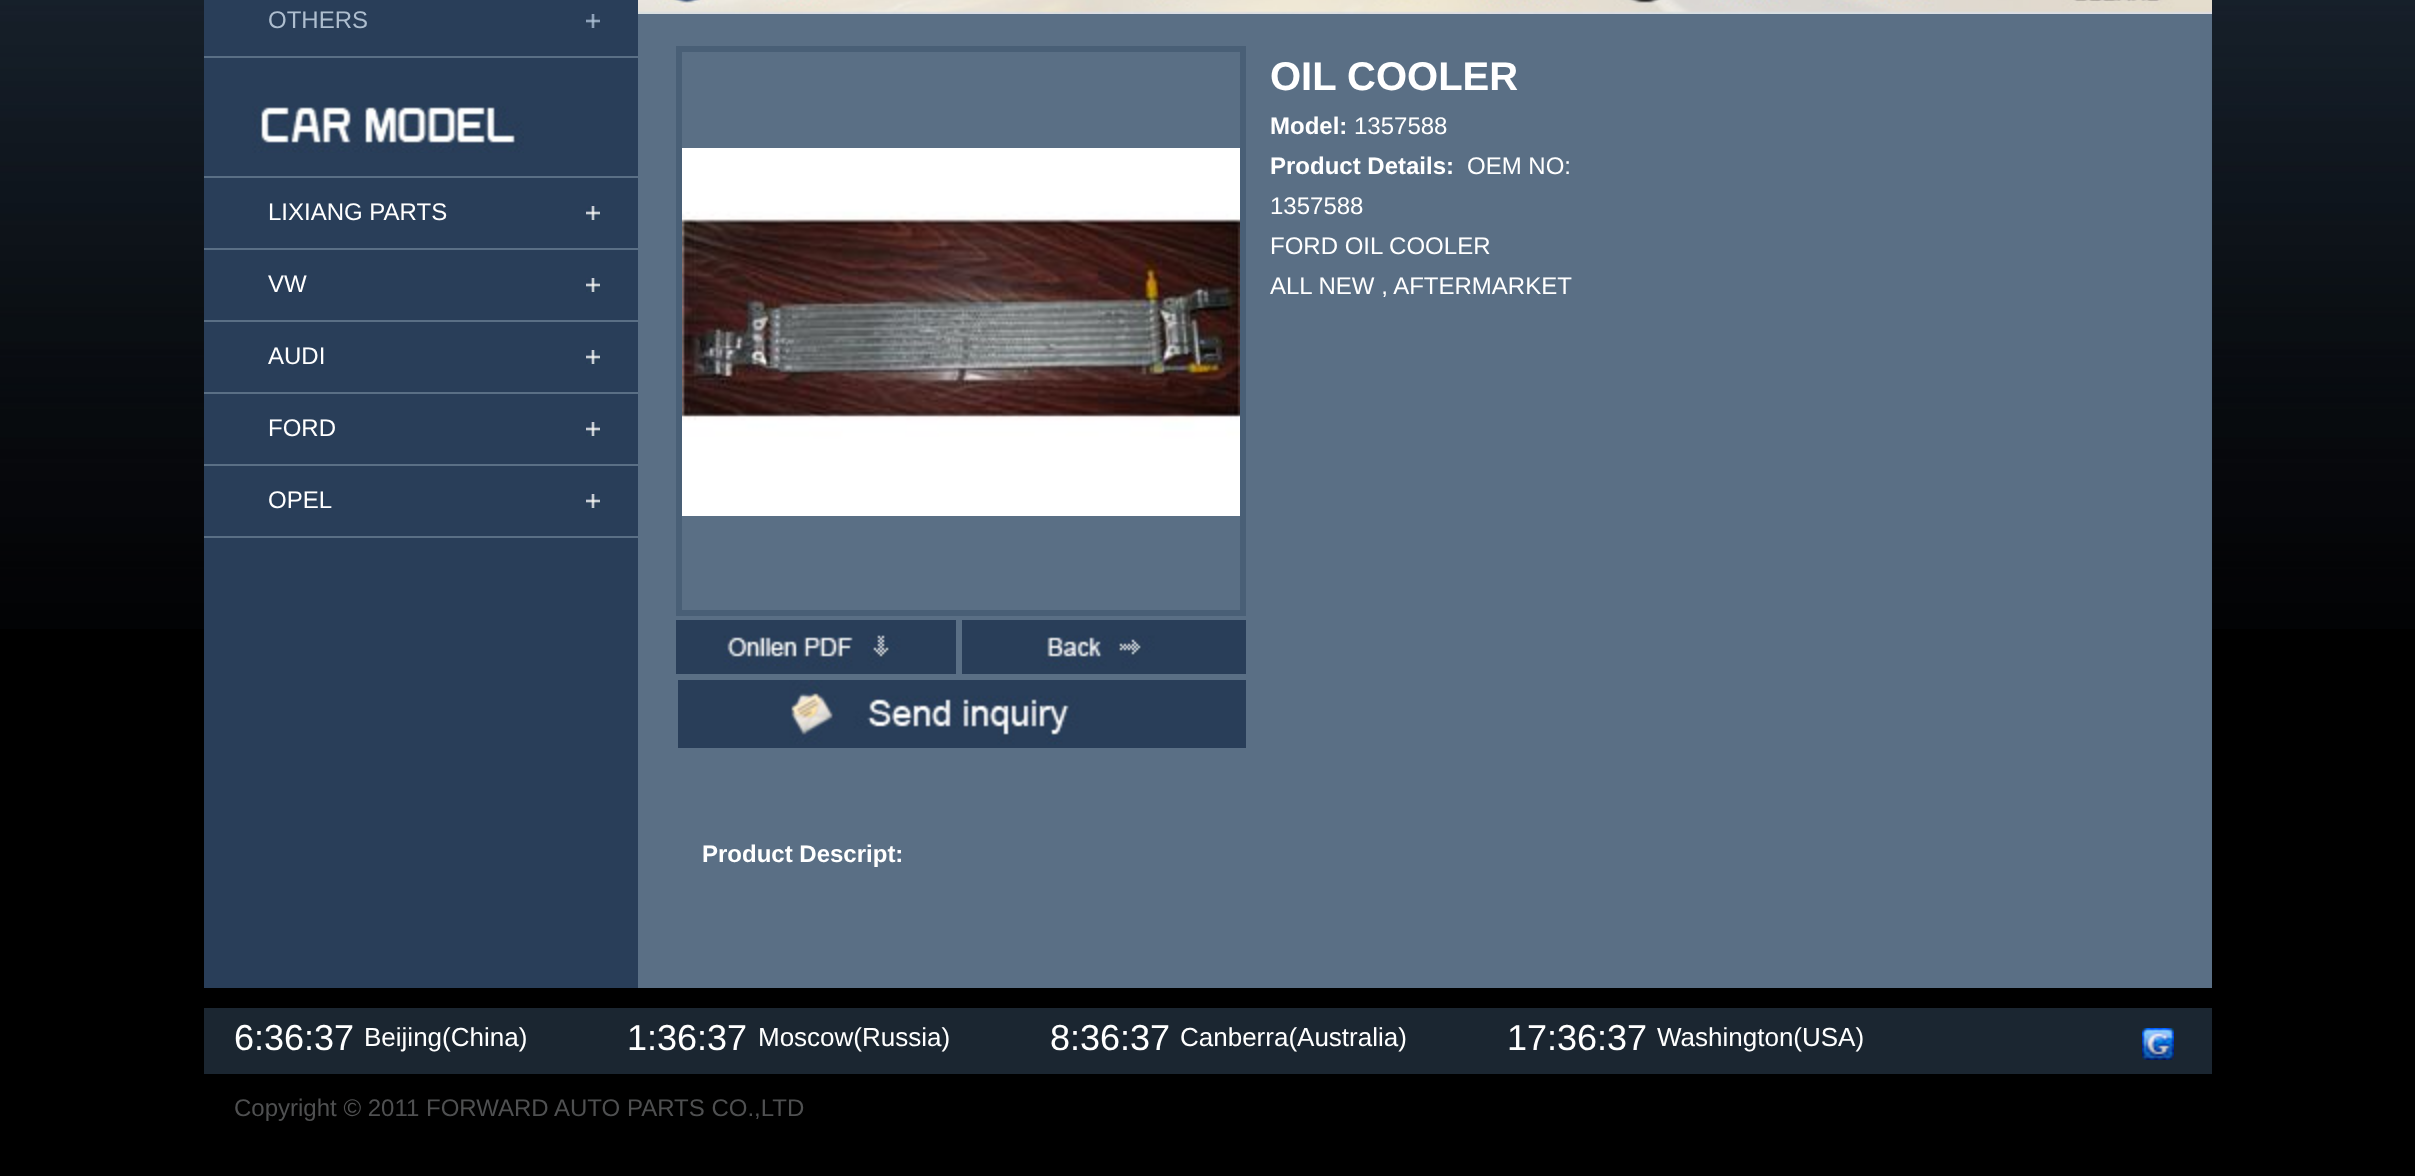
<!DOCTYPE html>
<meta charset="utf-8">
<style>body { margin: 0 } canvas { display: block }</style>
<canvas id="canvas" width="2415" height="1176"></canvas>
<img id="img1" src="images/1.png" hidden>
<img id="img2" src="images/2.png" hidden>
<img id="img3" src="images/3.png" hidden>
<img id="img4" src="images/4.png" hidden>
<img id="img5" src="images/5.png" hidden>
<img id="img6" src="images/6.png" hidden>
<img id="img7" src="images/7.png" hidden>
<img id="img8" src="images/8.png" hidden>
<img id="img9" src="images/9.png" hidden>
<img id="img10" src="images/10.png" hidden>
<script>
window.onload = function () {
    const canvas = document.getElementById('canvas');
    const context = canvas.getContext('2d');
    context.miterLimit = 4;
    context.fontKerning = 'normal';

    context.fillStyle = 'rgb(0, 0, 0)';
    context.fillRect(0, 0, 2415, 1176);
    context.drawImage(document.getElementById('img1'), 0, 0, 2415, 629);
    context.fillStyle = 'rgb(41, 62, 89)';
    context.fillRect(204, 0, 434, 988);
    context.fillStyle = 'rgb(90, 111, 133)';
    context.fillRect(204, 56, 434, 2);
    context.drawImage(document.getElementById('img2'), 586, 14, 14, 14);
    context.fillRect(204, 176, 434, 2);
    context.drawImage(document.getElementById('img3'), 252, 106, 272, 47);
    context.fillRect(204, 248, 434, 2);
    context.drawImage(document.getElementById('img4'), 586, 206, 14, 14);
    context.fillRect(204, 320, 434, 2);
    context.drawImage(document.getElementById('img4'), 586, 278, 14, 14);
    context.fillRect(204, 392, 434, 2);
    context.drawImage(document.getElementById('img4'), 586, 350, 14, 14);
    context.fillRect(204, 464, 434, 2);
    context.drawImage(document.getElementById('img4'), 586, 422, 14, 14);
    context.fillRect(204, 536, 434, 2);
    context.drawImage(document.getElementById('img4'), 586, 494, 14, 14);
    context.fillRect(638, 14, 1574, 974);
    context.drawImage(document.getElementById('img5'), 638, 0, 1574, 14);
    context.strokeStyle = 'rgb(73, 95, 118)';
    context.lineWidth = 6;
    context.strokeRect(679, 49, 564, 564);
    context.drawImage(document.getElementById('img6'), 682, 148, 558, 368);
    context.drawImage(document.getElementById('img7'), 676, 620, 280, 54);
    context.drawImage(document.getElementById('img8'), 962, 620, 284, 54);
    context.drawImage(document.getElementById('img9'), 678, 680, 568, 68);
    context.fillStyle = 'rgb(27, 38, 49)';
    context.fillRect(204, 1008, 2008, 66);
    context.drawImage(document.getElementById('img10'), 2142, 1028, 32, 32);
    context.font = '24px Liberation Sans';
    context.fillStyle = 'rgb(174, 190, 207)';
    context.fillText('OTHERS', 268, 28);
    context.fillStyle = 'rgb(255, 255, 255)';
    context.fillText('LIXIANG PARTS', 268, 220);
    context.fillText('VW', 268, 292);
    context.fillText('AUDI', 268, 364);
    context.fillText('FORD', 268, 436);
    context.fillText('OPEL', 268, 508);
    context.font = 'bold 40px Liberation Sans';
    context.fillText('OIL COOLER', 1270, 90);
    context.font = 'bold 24px Liberation Sans';
    context.fillText('Model:', 1270, 134);
    context.font = '24px Liberation Sans';
    context.fillText('1357588', 1354, 134);
    context.font = 'bold 24px Liberation Sans';
    context.fillText('Product Details:', 1270, 174);
    context.font = '24px Liberation Sans';
    context.fillText('OEM NO:', 1467, 174);
    context.fillText('1357588', 1270, 214);
    context.fillText('FORD OIL COOLER', 1270, 254);
    context.fillText('ALL NEW , AFTERMARKET', 1270, 294);
    context.font = 'bold 24px Liberation Sans';
    context.fillText('Product Descript:', 702, 862);
    context.font = '36px Liberation Sans';
    context.fillText('6:36:37', 234, 1050);
    context.font = '26px Liberation Sans';
    context.fillText('Beijing(China)', 364, 1046);
    context.font = '36px Liberation Sans';
    context.fillText('1:36:37', 627, 1050);
    context.font = '26px Liberation Sans';
    context.fillText('Moscow(Russia)', 758, 1046);
    context.font = '36px Liberation Sans';
    context.fillText('8:36:37', 1050, 1050);
    context.font = '26px Liberation Sans';
    context.fillText('Canberra(Australia)', 1180, 1046);
    context.font = '36px Liberation Sans';
    context.fillText('17:36:37', 1507, 1050);
    context.font = '26px Liberation Sans';
    context.fillText('Washington(USA)', 1657, 1046);
    context.font = '24px Liberation Sans';
    context.fillStyle = 'rgb(79, 80, 81)';
    context.fillText('Copyright © 2011 FORWARD AUTO PARTS CO.,LTD', 234, 1116);
};
</script>
